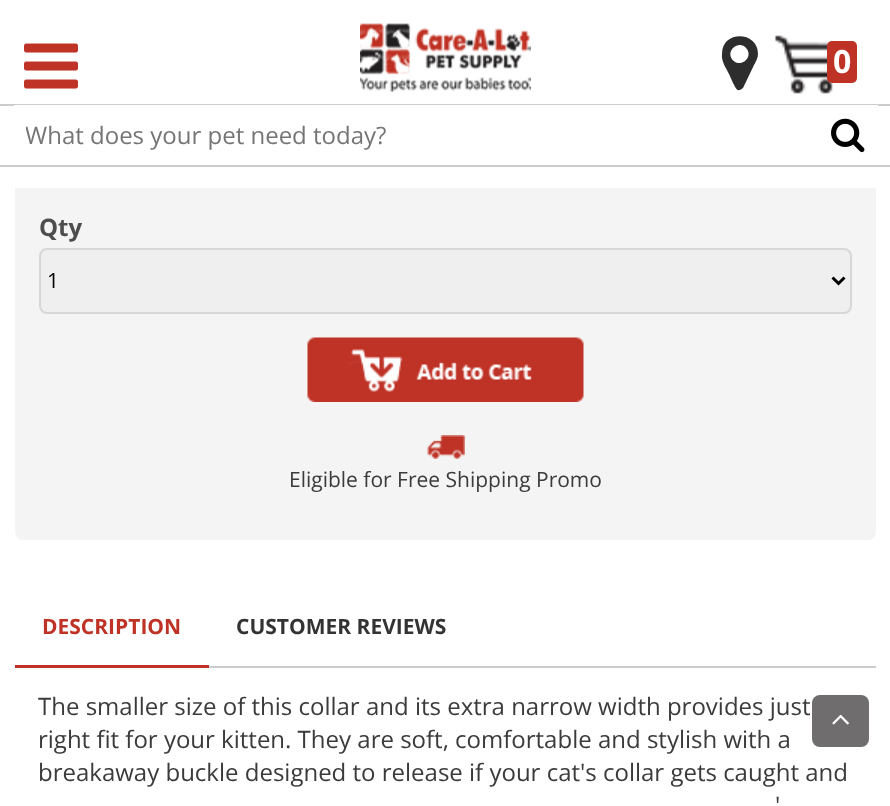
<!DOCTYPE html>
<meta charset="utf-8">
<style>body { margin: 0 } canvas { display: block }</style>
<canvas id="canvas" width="890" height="806"></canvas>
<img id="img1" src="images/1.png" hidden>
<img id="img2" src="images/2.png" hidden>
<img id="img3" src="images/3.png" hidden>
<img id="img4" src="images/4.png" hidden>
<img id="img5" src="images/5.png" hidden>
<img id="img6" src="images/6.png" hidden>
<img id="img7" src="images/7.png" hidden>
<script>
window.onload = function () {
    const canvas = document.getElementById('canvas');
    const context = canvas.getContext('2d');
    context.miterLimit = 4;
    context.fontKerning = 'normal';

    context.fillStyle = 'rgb(255, 255, 255)';
    context.fillRect(0, 0, 890, 806);
    context.fillStyle = 'rgb(244, 244, 244)';
    context.beginPath();
    context.roundRect(15, 101, 861, 439, 8);
    context.fill();
    context.fillStyle = 'rgb(255, 255, 255)';
    context.fillRect(15, 101, 861, 87);
    context.drawImage(document.getElementById('img1'), 24, 43, 54, 46);
    context.drawImage(document.getElementById('img2'), 360, 23, 171, 69);
    context.fillStyle = 'rgb(45, 45, 45)';
    context.beginPath();
    context.moveTo(746, 60);
    context.bezierCurveTo(754, 52, 742, 39, 733, 48);
    context.bezierCurveTo(725, 56, 737, 69, 746, 60);
    context.closePath();
    context.moveTo(758, 54);
    context.bezierCurveTo(758, 58, 756, 61, 754, 65);
    context.lineTo(743, 88);
    context.lineTo(740, 90);
    context.bezierCurveTo(736, 91, 735, 86, 733, 83);
    context.lineTo(729, 74);
    context.bezierCurveTo(726, 68, 721, 61, 722, 54);
    context.bezierCurveTo(722, 30, 758, 31, 758, 54);
    context.closePath();
    context.fill();
    context.drawImage(document.getElementById('img3'), 775, 35, 58, 59);
    context.fillStyle = 'rgb(191, 50, 38)';
    context.beginPath();
    context.roundRect(827, 41, 30, 42, 5);
    context.fill();
    context.fillStyle = 'rgb(204, 204, 204)';
    context.fillRect(0, 104, 890, 2);
    context.fillRect(0, 165, 890, 2);
    context.fillStyle = 'rgb(255, 255, 255)';
    context.fillRect(14, 105, 864, 1);
    context.drawImage(document.getElementById('img4'), 831, 118, 34, 35);
    context.fillStyle = 'rgb(239, 239, 239)';
    context.beginPath();
    context.roundRect(40, 249, 811, 64, 7);
    context.fill();
    context.strokeStyle = 'rgb(215, 215, 215)';
    context.lineWidth = 2;
    context.stroke();
    context.beginPath();
    context.moveTo(832.5, 277.5);
    context.lineTo(838.5, 283.5);
    context.lineTo(844.5, 277.5);
    context.strokeStyle = 'rgb(0, 0, 0)';
    context.lineWidth = 3;
    context.stroke();
    context.drawImage(document.getElementById('img5'), 307, 337, 277, 65);
    context.drawImage(document.getElementById('img6'), 427, 435, 38, 24);
    context.fillStyle = 'rgb(191, 50, 38)';
    context.fillRect(15, 665, 194, 3);
    context.fillStyle = 'rgb(204, 204, 204)';
    context.fillRect(209, 666, 667, 2);
    context.fillStyle = 'rgb(111, 109, 109)';
    context.beginPath();
    context.roundRect(812, 695, 57, 52, 8);
    context.fill();
    context.drawImage(document.getElementById('img7'), 832, 714, 17, 11);
    context.font = 'bold 32px Open Sans';
    context.fillStyle = 'rgb(255, 255, 255)';
    context.fillText('0', 833, 73);
    context.save();
    context.beginPath();
    context.rect(26, 119, 840, 33);
    context.clip();
    context.font = '24px Open Sans';
    context.fillStyle = 'rgb(117, 117, 117)';
    context.fillText('What does your pet need today?', 25, 144);
    context.restore();
    context.font = 'bold 24px Open Sans';
    context.fillStyle = 'rgb(77, 77, 77)';
    context.fillText('Qty', 39, 236);
    context.font = '21px Open Sans';
    context.fillStyle = 'rgb(0, 0, 0)';
    context.fillText('1', 47, 288);
    context.fillStyle = 'rgb(59, 59, 59)';
    context.fillText('Eligible for Free Shipping Promo', 289, 487);
    context.font = 'bold 21px Open Sans';
    context.fillStyle = 'rgb(191, 50, 38)';
    context.fillText('DESCRIPTION', 42, 634);
    context.font = '24px Open Sans';
    context.fillStyle = 'rgb(59, 59, 59)';
    context.fillText('The smaller size of this collar and its extra narrow width provides just', 38, 715);
    context.fillText('right fit for your kitten. They are soft, comfortable and stylish with a', 38, 748);
    context.fillText('breakaway buckle designed to release if your cat\'s collar gets caught and', 38, 781);
    context.fillText('\'', 775, 814);
    context.font = 'bold 21px Open Sans';
    context.fillStyle = 'rgb(51, 51, 51)';
    context.fillText('CUSTOMER REVIEWS', 236, 634);
};
</script>
